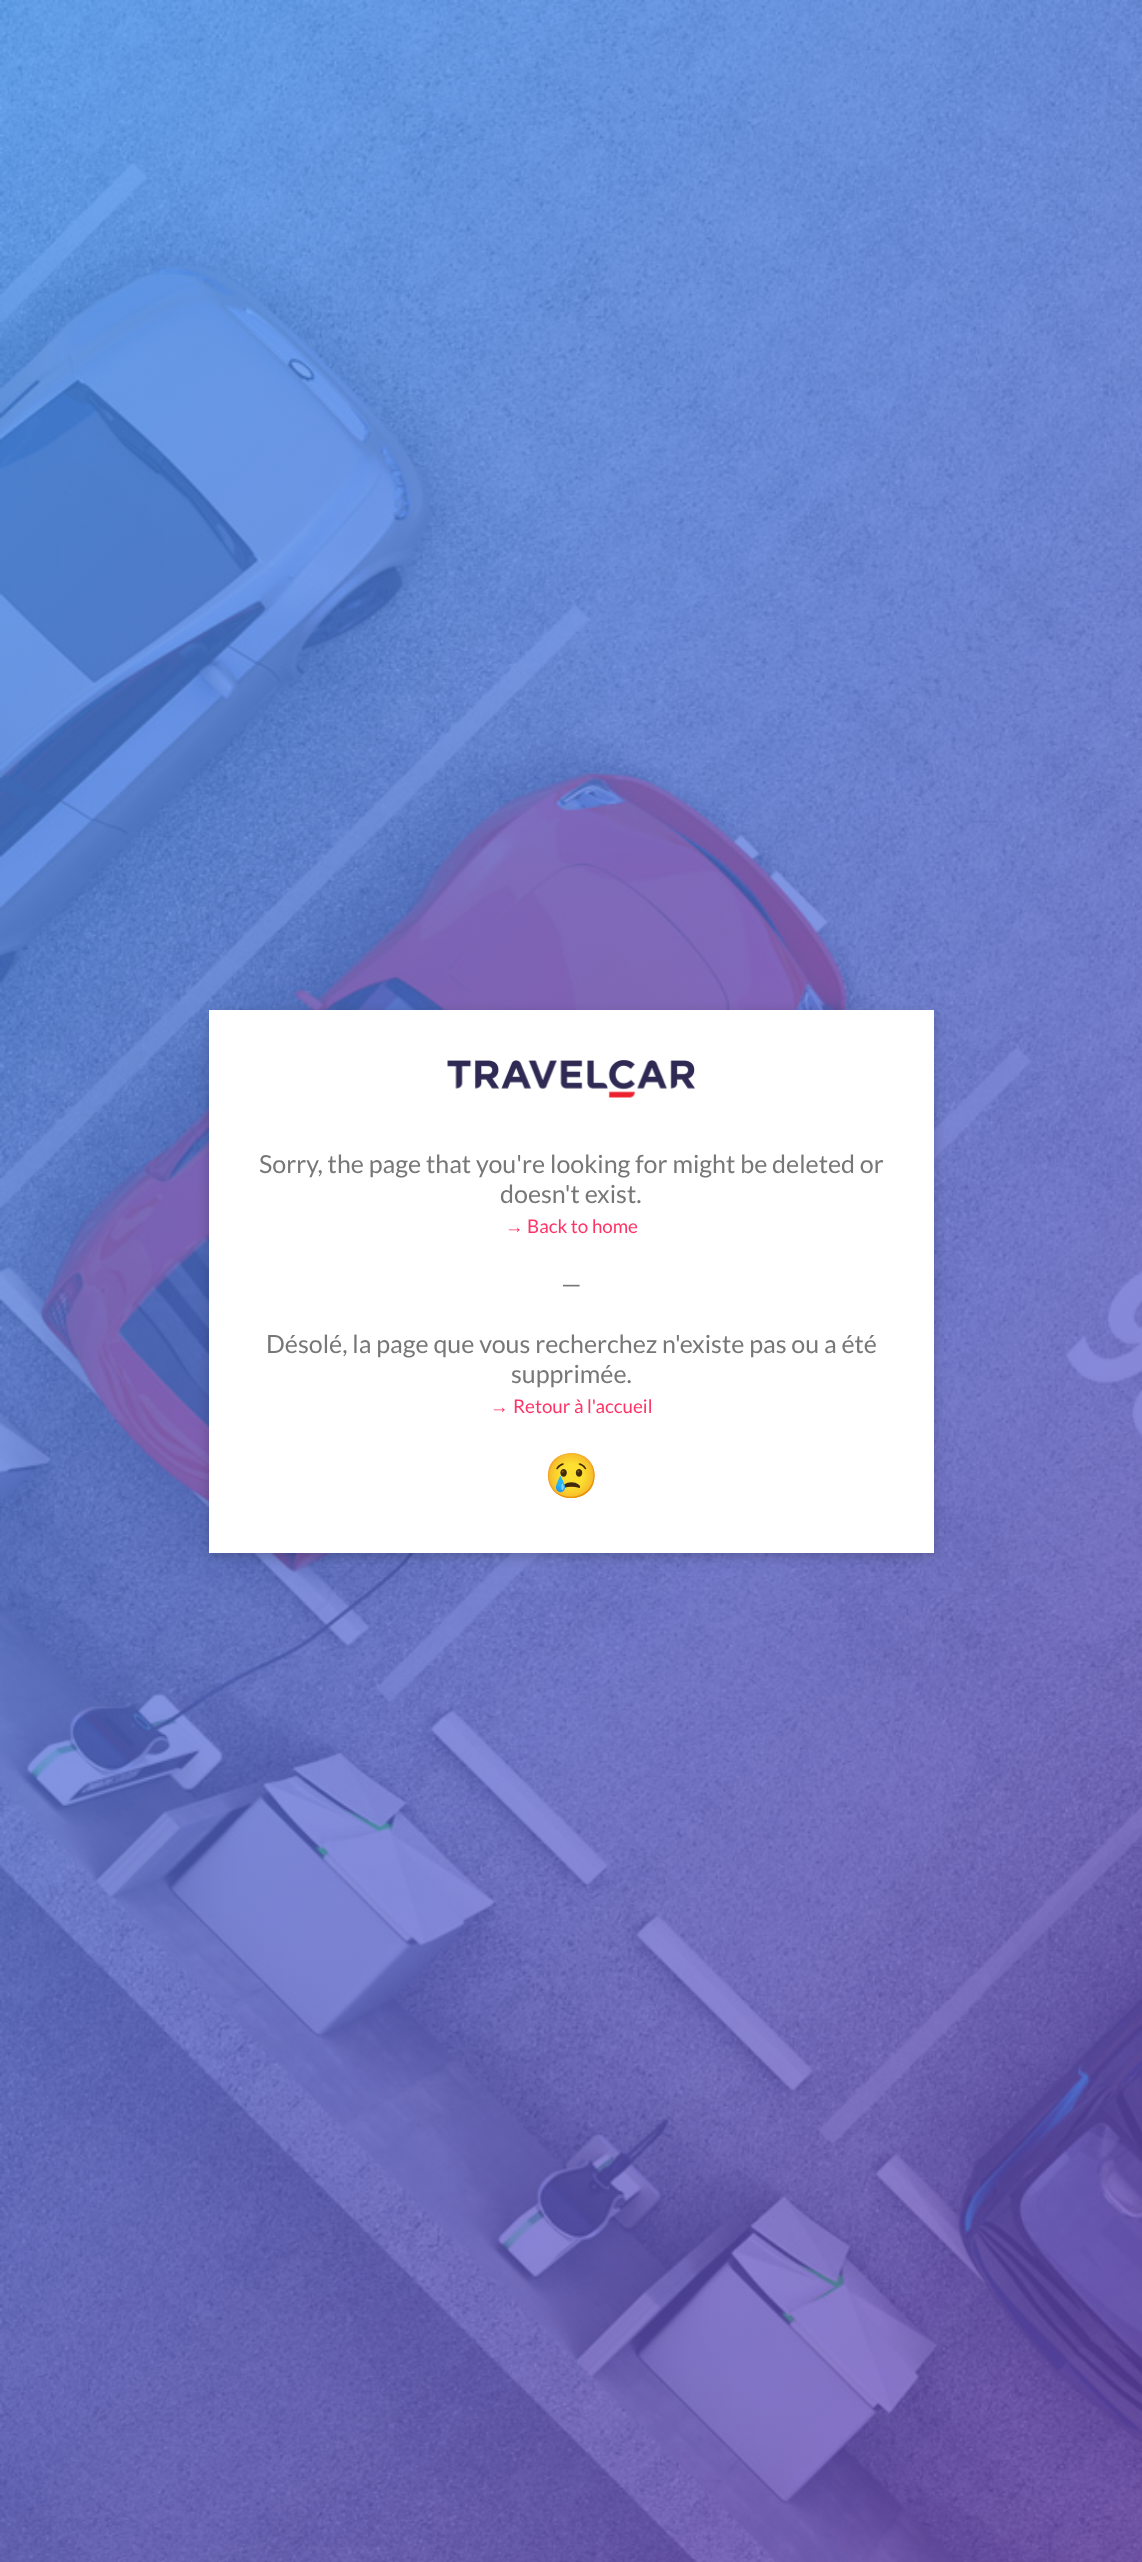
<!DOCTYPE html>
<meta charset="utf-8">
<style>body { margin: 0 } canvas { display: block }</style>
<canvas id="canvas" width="1142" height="2562"></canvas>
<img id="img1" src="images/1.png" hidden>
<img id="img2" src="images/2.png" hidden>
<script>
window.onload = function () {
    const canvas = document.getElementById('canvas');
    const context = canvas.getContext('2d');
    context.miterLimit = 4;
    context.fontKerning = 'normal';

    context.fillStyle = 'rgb(255, 255, 255)';
    context.fillRect(0, 0, 1142, 2562);
    context.drawImage(document.getElementById('img1'), 0, 0, 1142, 2562);
    context.fillStyle = 'rgba(0, 0, 0, 0.2)';
    context.filter = 'blur(6px)';
    context.beginPath();
    context.rect(209, 1014, 725, 542);
    context.fill();
    context.filter = 'none';
    context.fillStyle = 'rgb(255, 255, 255)';
    context.fillRect(209, 1010, 725, 543);
    context.drawImage(document.getElementById('img2'), 447, 1060, 248, 38);
    context.font = '25px Lato';
    context.fillStyle = 'rgb(119, 119, 119)';
    context.fillText('Sorry, the page that you\'re looking for might be deleted or', 259, 1173);
    context.fillText('doesn\'t exist.', 500, 1203);
    context.font = '18.75px Liberation Sans';
    context.fillStyle = 'rgb(255, 51, 102)';
    context.fillText('→', 505, 1233);
    context.font = '18.75px Lato';
    context.fillText('Back to home', 527, 1233);
    context.font = '25px Lato';
    context.fillStyle = 'rgb(119, 119, 119)';
    context.fillText('—', 561, 1293);
    context.fillText('Désolé, la page que vous recherchez n\'existe pas ou a été', 266, 1353);
    context.fillText('supprimée.', 511, 1383);
    context.font = '18.75px Liberation Sans';
    context.fillStyle = 'rgb(255, 51, 102)';
    context.fillText('→', 490, 1413);
    context.font = '18.75px Lato';
    context.fillText('Retour à l\'accueil', 513, 1413);
    context.font = '44px Noto Color Emoji';
    context.fillStyle = 'rgb(119, 119, 119)';
    context.fillText('😢', 544, 1491);
};
</script>
